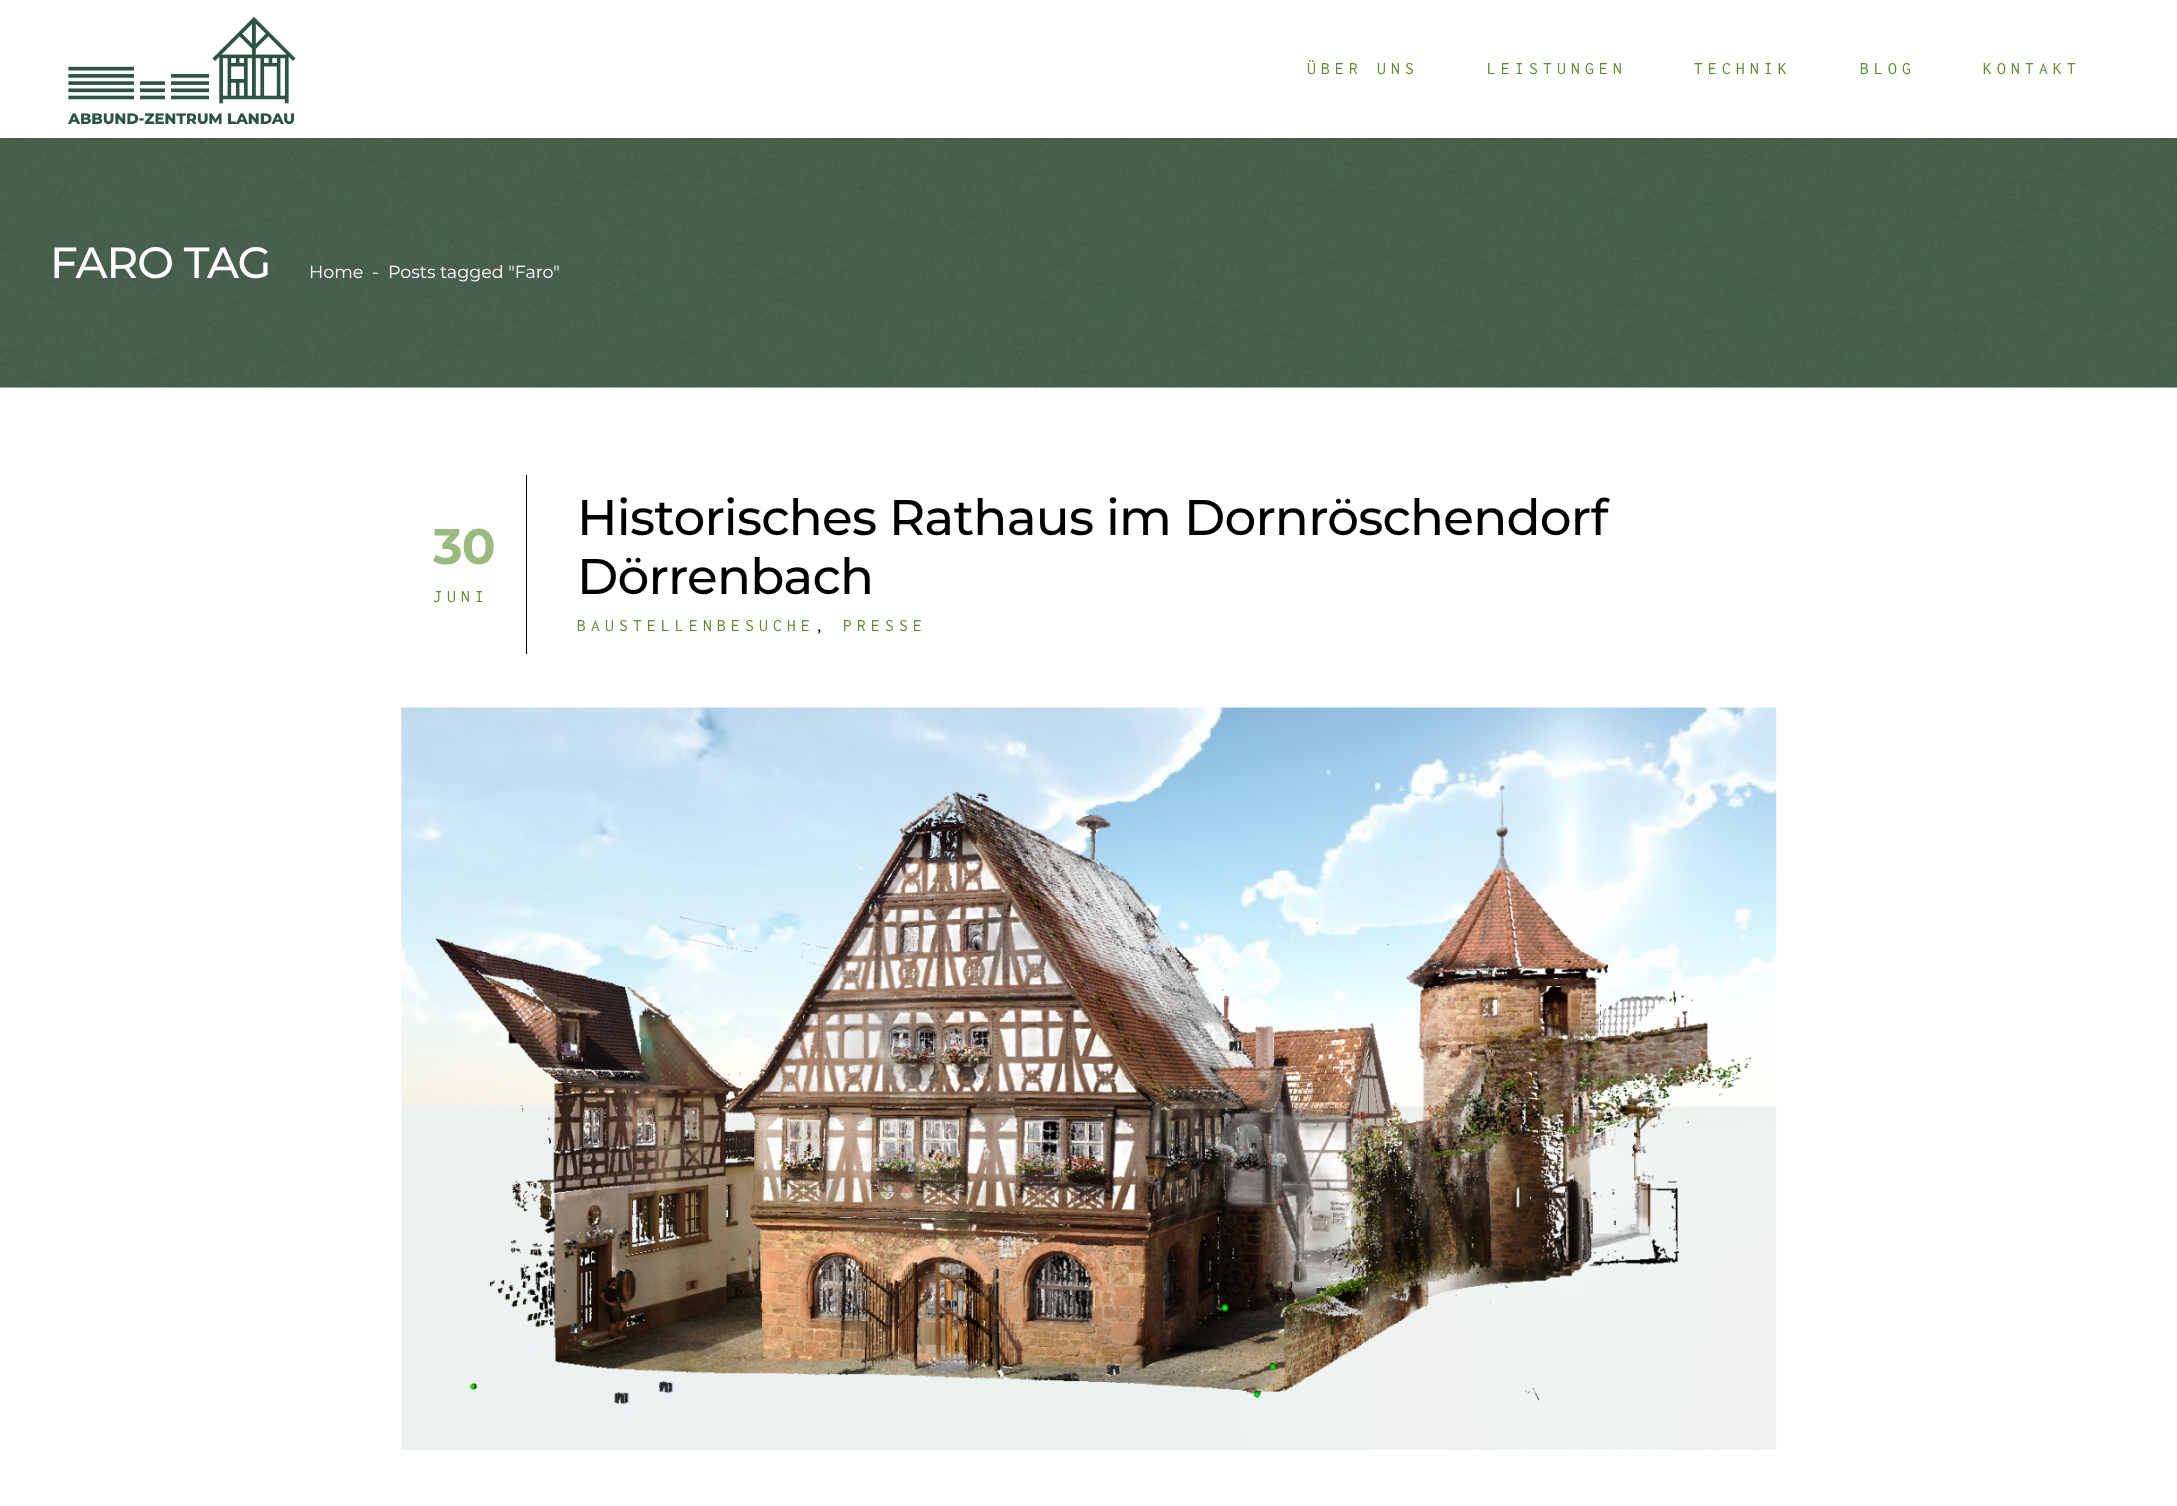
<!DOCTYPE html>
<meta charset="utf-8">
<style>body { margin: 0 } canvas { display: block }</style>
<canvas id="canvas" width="2177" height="1506"></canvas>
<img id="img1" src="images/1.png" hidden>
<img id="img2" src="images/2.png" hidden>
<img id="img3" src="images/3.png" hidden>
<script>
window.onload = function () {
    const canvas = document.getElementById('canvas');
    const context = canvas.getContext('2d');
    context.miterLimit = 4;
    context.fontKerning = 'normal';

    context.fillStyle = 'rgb(255, 255, 255)';
    context.fillRect(0, 0, 2177, 1506);
    context.drawImage(document.getElementById('img1'), 68, 16, 228, 109);
    context.fillStyle = 'rgb(246, 246, 246)';
    context.fillRect(0, 387, 2177, 1);
    context.drawImage(document.getElementById('img2'), 0, 138, 2177, 250);
    context.fillStyle = 'rgb(0, 0, 0)';
    context.fillRect(526, 475, 1, 179);
    context.drawImage(document.getElementById('img3'), 401, 707, 1376, 743);
    context.letterSpacing = '5.25px';
    context.font = '17.5px Inconsolata';
    context.fillStyle = 'rgb(86, 142, 44)';
    context.fillText('ÜBER UNS', 1307, 74);
    context.fillText('LEISTUNGEN', 1487, 74);
    context.fillText('TECHNIK', 1694, 74);
    context.fillText('BLOG', 1860, 74);
    context.fillText('KONTAKT', 1983, 74);
    context.letterSpacing = '-1px';
    context.font = '500 43.75px Montserrat';
    context.fillStyle = 'rgb(255, 255, 255)';
    context.fillText('FARO TAG', 50, 278);
    context.letterSpacing = '0px';
    context.font = '17.5px Montserrat';
    context.fillText('Home', 309, 278);
    context.fillText('-', 372, 278);
    context.fillText('Posts tagged "Faro"', 388, 278);
    context.letterSpacing = '-0.75px';
    context.font = 'bold 50px Montserrat';
    context.fillStyle = 'rgb(154, 187, 128)';
    context.fillText('30', 433, 564);
    context.letterSpacing = '5.25px';
    context.font = '17.5px Inconsolata';
    context.fillStyle = 'rgb(86, 142, 44)';
    context.fillText('JUNI', 433, 602);
    context.letterSpacing = '-0.75px';
    context.font = '500 50px Montserrat';
    context.fillStyle = 'rgb(0, 0, 0)';
    context.fillText('Historisches Rathaus im Dornröschendorf', 577, 535);
    context.fillText('Dörrenbach', 577, 594);
    context.letterSpacing = '5.25px';
    context.font = '17.5px Inconsolata';
    context.fillStyle = 'rgb(86, 142, 44)';
    context.fillText('BAUSTELLENBESUCHE', 577, 631);
    context.fillStyle = 'rgb(0, 0, 0)';
    context.fillText(',', 815, 631);
    context.fillStyle = 'rgb(86, 142, 44)';
    context.fillText('PRESSE', 843, 631);
};
</script>
